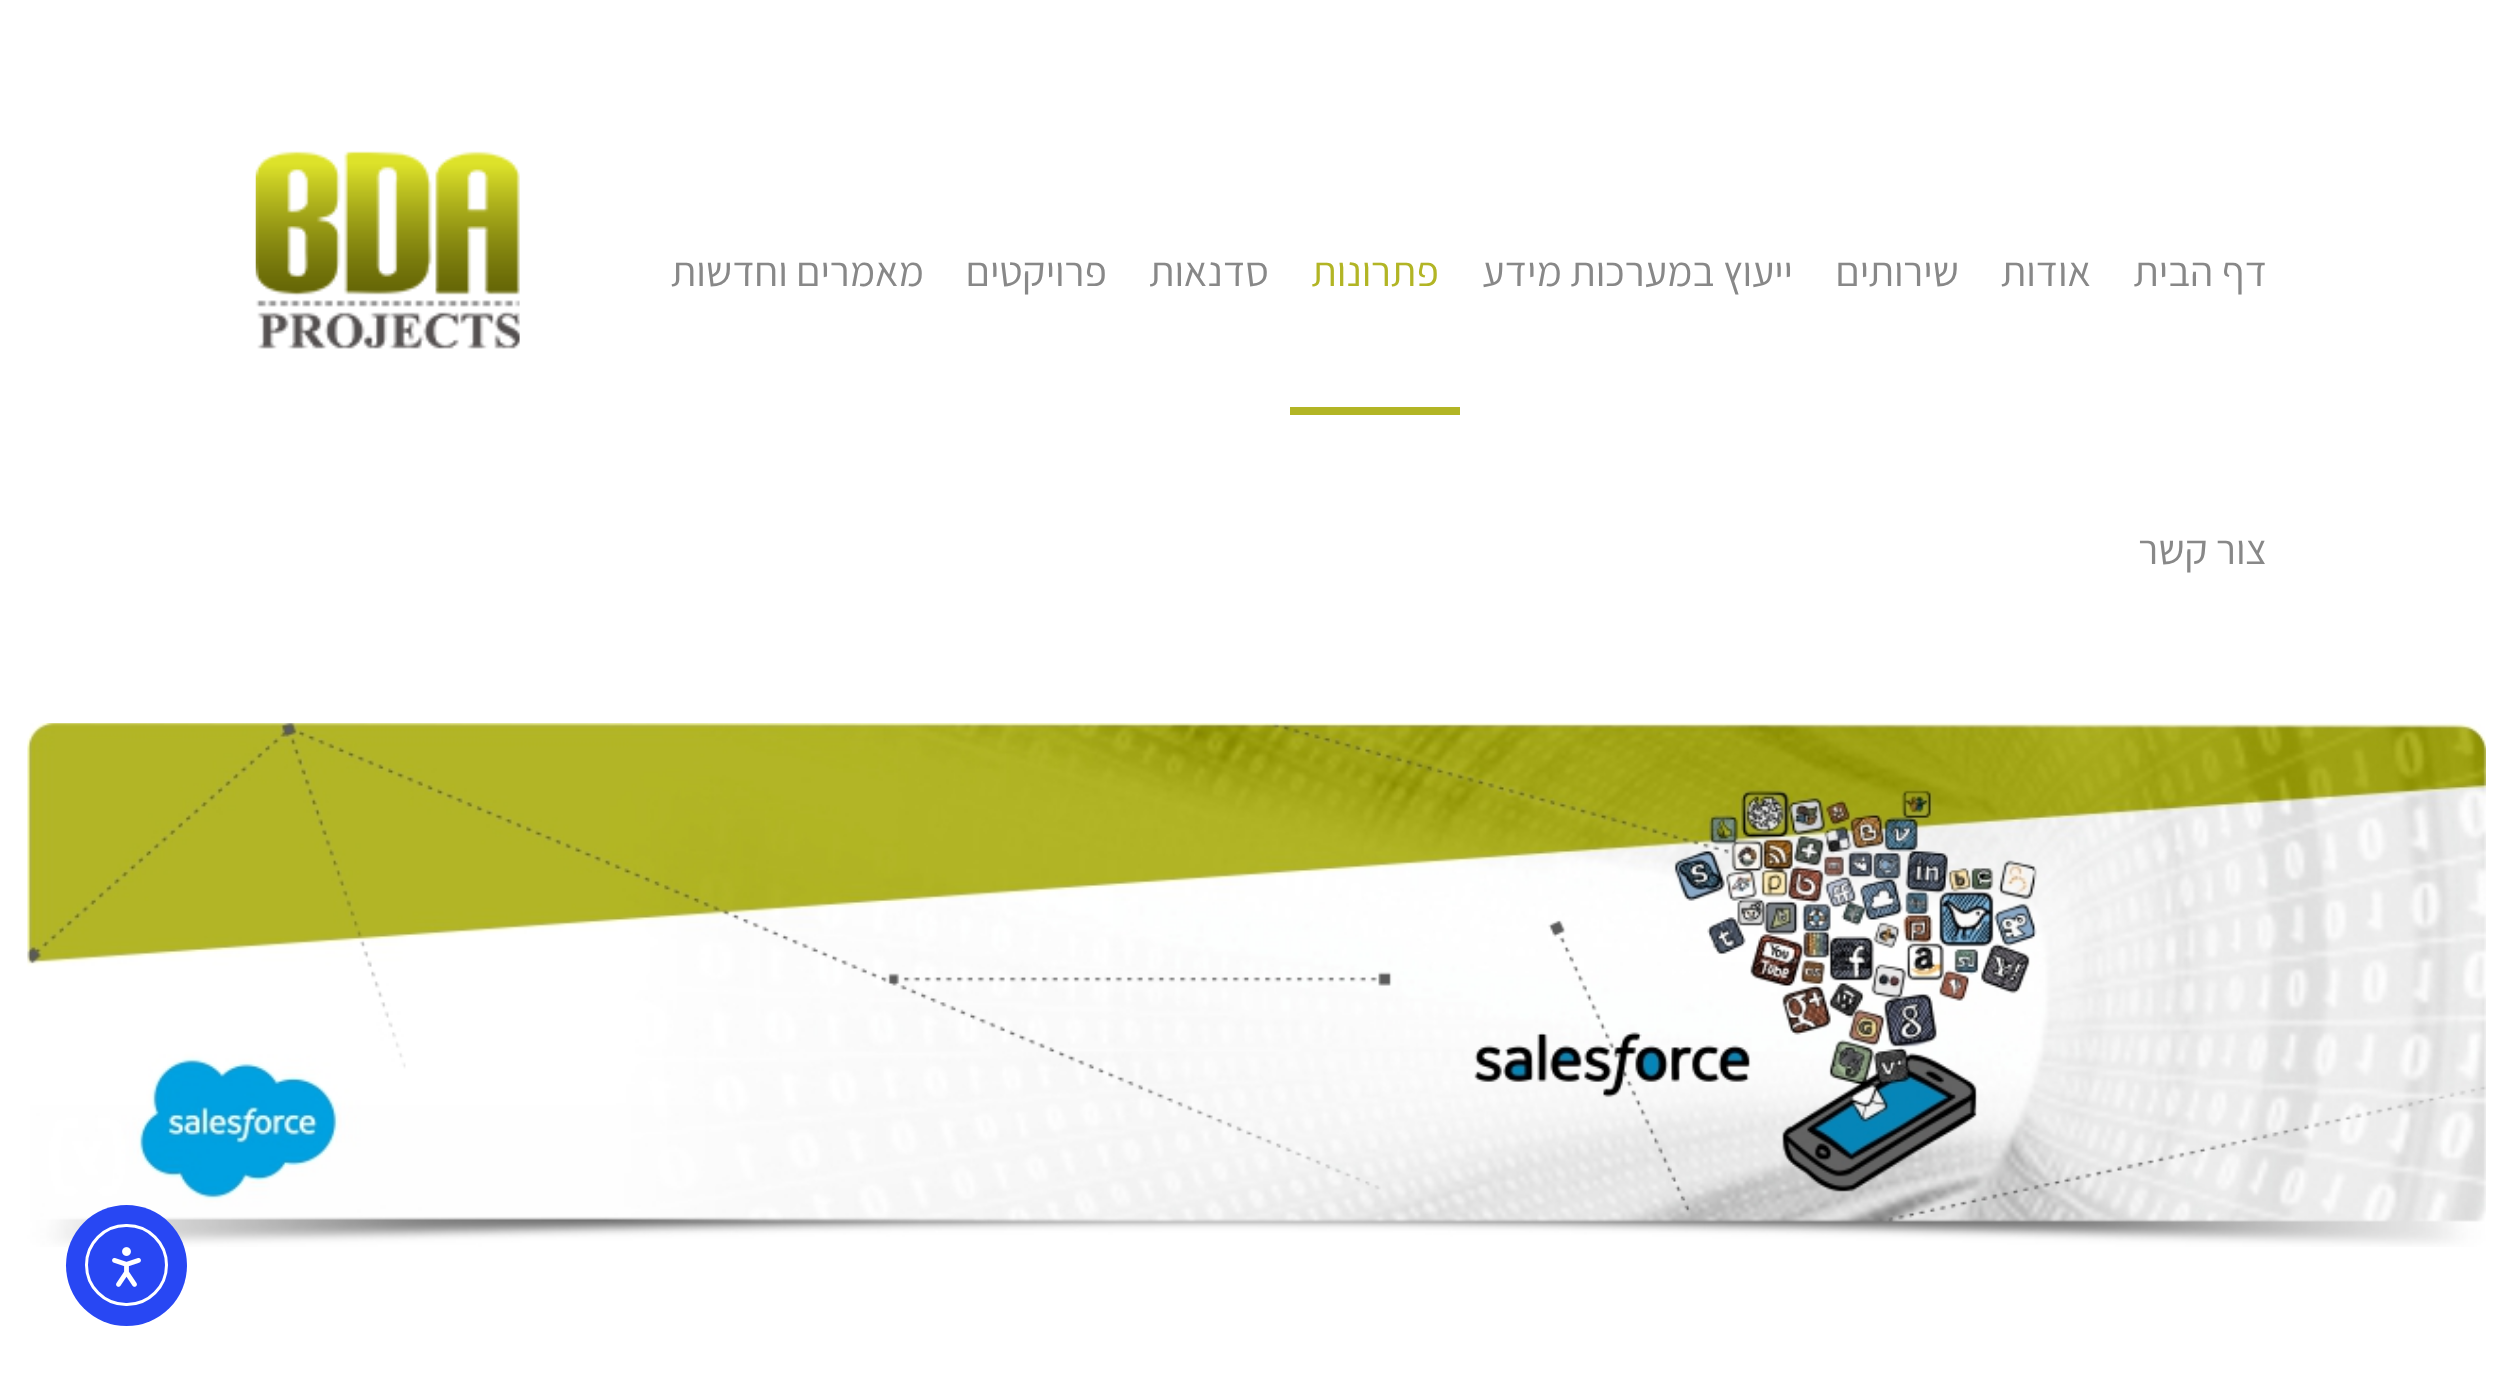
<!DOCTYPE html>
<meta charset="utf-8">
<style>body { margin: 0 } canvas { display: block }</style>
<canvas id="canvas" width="2512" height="1391"></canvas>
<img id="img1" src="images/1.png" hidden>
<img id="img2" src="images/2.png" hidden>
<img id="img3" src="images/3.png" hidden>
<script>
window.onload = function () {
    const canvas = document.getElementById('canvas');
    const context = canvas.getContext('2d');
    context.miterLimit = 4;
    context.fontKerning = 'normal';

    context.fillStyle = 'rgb(255, 255, 255)';
    context.fillRect(0, 0, 2512, 1391);
    context.fillStyle = 'rgb(178, 181, 37)';
    context.fillRect(1290, 407, 170, 8);
    context.drawImage(document.getElementById('img1'), 255, 151, 265, 198);
    context.drawImage(document.getElementById('img2'), 27, 723, 2459, 524);
    context.fillStyle = 'rgb(40, 71, 243)';
    context.beginPath();
    context.arc(126.5, 1265.5, 60.5, 0, 2 * Math.PI);
    context.fill();
    context.beginPath();
    context.roundRect(86.5, 1225.5, 80, 79, 39.5);
    context.strokeStyle = 'rgb(255, 255, 255)';
    context.lineWidth = 3;
    context.stroke();
    context.drawImage(document.getElementById('img3'), 112, 1247, 29, 40);
    context.direction = 'rtl';
    context.font = '42px Assistant';
    context.fillStyle = 'rgb(136, 136, 136)';
    context.fillText('דף הבית', 2267, 286);
    context.fillText('אודות', 2091, 286);
    context.fillText('שירותים', 1959, 286);
    context.fillText('ייעוץ במערכות מידע', 1793, 286);
    context.fillStyle = 'rgb(178, 181, 37)';
    context.fillText('פתרונות', 1439, 286);
    context.fillStyle = 'rgb(136, 136, 136)';
    context.fillText('סדנאות', 1269, 286);
    context.fillText('פרויקטים', 1107, 286);
    context.fillText('מאמרים וחדשות', 924, 286);
    context.fillText('צור קשר', 2267, 564);
};
</script>
